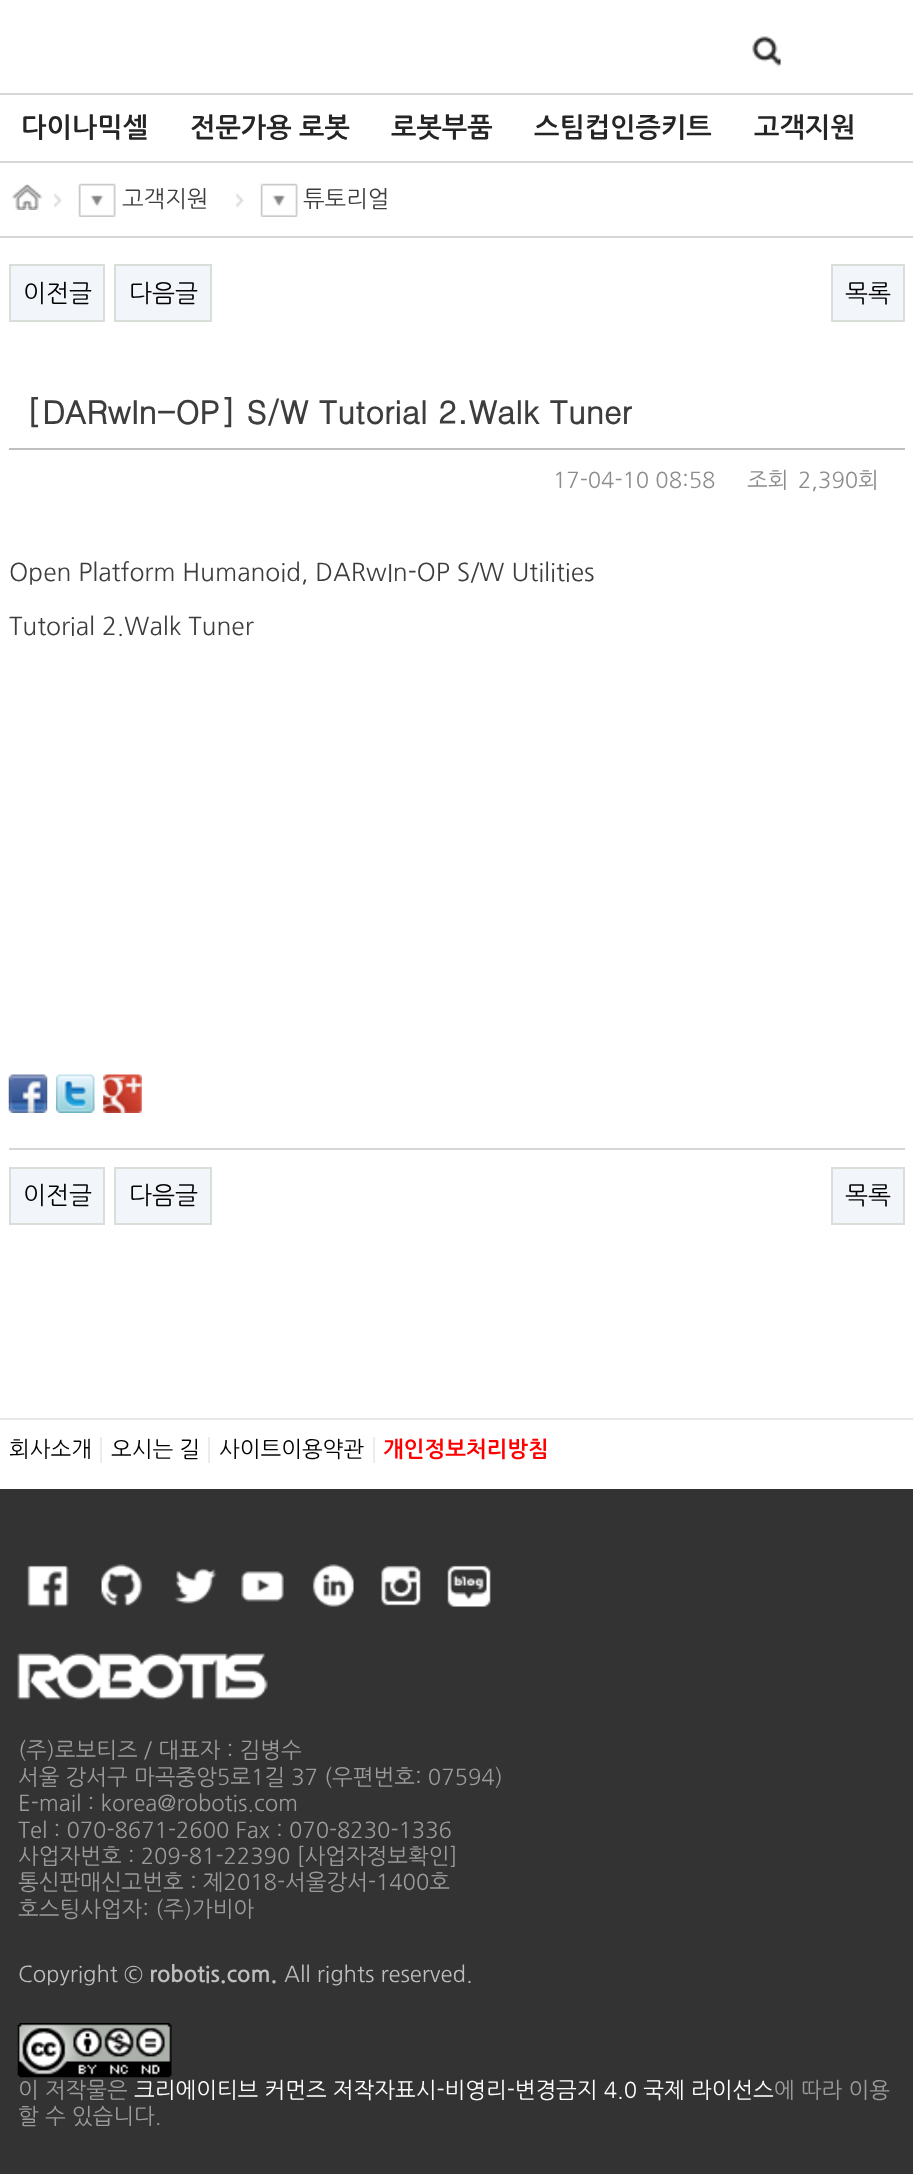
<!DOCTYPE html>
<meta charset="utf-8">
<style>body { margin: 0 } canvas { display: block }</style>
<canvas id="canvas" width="913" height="2174"></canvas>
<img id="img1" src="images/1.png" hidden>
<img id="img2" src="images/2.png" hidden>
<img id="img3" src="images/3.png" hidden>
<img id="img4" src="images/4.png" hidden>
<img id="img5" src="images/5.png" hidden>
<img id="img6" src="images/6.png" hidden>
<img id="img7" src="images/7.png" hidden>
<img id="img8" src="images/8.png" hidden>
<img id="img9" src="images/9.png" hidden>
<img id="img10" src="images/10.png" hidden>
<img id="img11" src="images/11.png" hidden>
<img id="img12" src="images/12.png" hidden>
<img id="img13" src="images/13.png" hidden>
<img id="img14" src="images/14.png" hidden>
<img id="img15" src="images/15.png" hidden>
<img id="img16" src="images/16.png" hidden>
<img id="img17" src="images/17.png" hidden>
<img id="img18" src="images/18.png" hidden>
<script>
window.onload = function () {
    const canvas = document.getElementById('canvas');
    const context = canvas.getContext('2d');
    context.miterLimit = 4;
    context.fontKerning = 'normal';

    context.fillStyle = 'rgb(255, 255, 255)';
    context.fillRect(0, 0, 913, 2174);
    context.fillStyle = 'rgb(214, 214, 214)';
    context.fillRect(0, 93, 913, 2);
    context.drawImage(document.getElementById('img1'), 752, 36, 29, 31);
    context.fillRect(0, 161, 913, 2);
    context.fillRect(0, 236, 913, 2);
    context.drawImage(document.getElementById('img2'), 12, 183, 31, 27);
    context.drawImage(document.getElementById('img3'), 54, 193, 8, 15);
    context.drawImage(document.getElementById('img4'), 78, 183, 38, 34);
    context.drawImage(document.getElementById('img5'), 236, 193, 8, 15);
    context.drawImage(document.getElementById('img6'), 260, 183, 38, 34);
    context.fillStyle = 'rgb(242, 245, 249)';
    context.beginPath();
    context.rect(10, 265, 94, 56);
    context.fill();
    context.strokeStyle = 'rgb(217, 222, 217)';
    context.lineWidth = 2;
    context.stroke();
    context.beginPath();
    context.rect(115, 265, 96, 56);
    context.fill();
    context.stroke();
    context.beginPath();
    context.rect(832, 265, 72, 56);
    context.fill();
    context.stroke();
    context.fillStyle = 'rgb(192, 192, 192)';
    context.fillRect(9, 448, 896, 2);
    context.drawImage(document.getElementById('img7'), 8, 1074, 40, 39);
    context.drawImage(document.getElementById('img8'), 56, 1074, 39, 39);
    context.drawImage(document.getElementById('img9'), 103, 1074, 39, 39);
    context.fillStyle = 'rgb(214, 214, 214)';
    context.fillRect(9, 1148, 896, 2);
    context.fillStyle = 'rgb(242, 245, 249)';
    context.beginPath();
    context.rect(10, 1168, 94, 56);
    context.fill();
    context.stroke();
    context.beginPath();
    context.rect(115, 1168, 96, 56);
    context.fill();
    context.stroke();
    context.beginPath();
    context.rect(832, 1168, 72, 56);
    context.fill();
    context.stroke();
    context.fillStyle = 'rgb(232, 232, 232)';
    context.fillRect(0, 1418, 913, 2);
    context.fillStyle = 'rgb(236, 236, 236)';
    context.fillRect(100, 1437, 2, 26);
    context.fillRect(208, 1437, 2, 26);
    context.fillRect(373, 1437, 2, 26);
    context.fillStyle = 'rgb(51, 51, 51)';
    context.fillRect(0, 1489, 913, 685);
    context.drawImage(document.getElementById('img10'), 27, 1565, 42, 42);
    context.drawImage(document.getElementById('img11'), 101, 1564, 42, 43);
    context.drawImage(document.getElementById('img12'), 174, 1568, 43, 36);
    context.drawImage(document.getElementById('img13'), 241, 1571, 43, 31);
    context.drawImage(document.getElementById('img14'), 312, 1564, 42, 43);
    context.drawImage(document.getElementById('img15'), 381, 1565, 40, 41);
    context.drawImage(document.getElementById('img16'), 447, 1565, 44, 42);
    context.drawImage(document.getElementById('img17'), 17, 1653, 251, 47);
    context.drawImage(document.getElementById('img18'), 17, 2023, 155, 55);
    context.font = 'bold 27px NanumGothic';
    context.fillStyle = 'rgb(37, 37, 37)';
    context.fillText('다이나믹셀', 21, 137);
    context.fillText('전문가용 로봇', 190, 137);
    context.fillText('로봇부품', 391, 137);
    context.fillText('스팀컵인증키트', 534, 137);
    context.fillText('고객지원', 754, 137);
    context.font = '23px NanumGothic';
    context.fillStyle = 'rgb(61, 61, 61)';
    context.fillText('고객지원', 122, 207);
    context.fillText('튜토리얼', 303, 207);
    context.font = '24.5px NanumGothic';
    context.fillStyle = 'rgb(0, 0, 0)';
    context.fillText('이전글', 23, 302);
    context.fillText('다음글', 129, 302);
    context.fillText('목록', 845, 302);
    context.font = 'bold 31.8px Dotum';
    context.fillStyle = 'rgb(61, 61, 61)';
    context.fillText('[DARwIn-OP] S/W Tutorial 2.Walk Tuner', 26, 424);
    context.font = '22.05px NanumGothic';
    context.fillStyle = 'rgb(140, 140, 140)';
    context.fillText('17-04-10 08:58', 553, 488);
    context.fillText('조회', 747, 488);
    context.fillText('2,390회', 798, 488);
    context.font = '24.5px NanumGothic';
    context.fillStyle = 'rgb(61, 61, 61)';
    context.fillText('Open Platform Humanoid, DARwIn-OP S/W Utilities', 9, 581);
    context.fillText('Tutorial 2.Walk Tuner', 9, 635);
    context.fillStyle = 'rgb(0, 0, 0)';
    context.fillText('이전글', 23, 1204);
    context.fillText('다음글', 129, 1204);
    context.fillText('목록', 845, 1204);
    context.font = '22.05px NanumGothic';
    context.fillText('회사소개', 9, 1457);
    context.fillText('오시는 길', 111, 1457);
    context.fillText('사이트이용약관', 219, 1457);
    context.font = 'bold 22.05px NanumGothic';
    context.fillStyle = 'rgb(255, 0, 0)';
    context.fillText('개인정보처리방침', 383, 1457);
    context.font = '22.05px NanumGothic';
    context.fillStyle = 'rgb(155, 155, 155)';
    context.fillText('(주)로보티즈 / 대표자 : 김병수', 18, 1758);
    context.fillText('서울 강서구 마곡중앙5로1길 37 (우편번호: 07594)', 18, 1785);
    context.fillText('E-mail : korea@robotis.com', 18, 1811);
    context.fillText('Tel : 070-8671-2600 Fax : 070-8230-1336', 18, 1838);
    context.fillText('사업자번호 : 209-81-22390 [사업자정보확인]', 18, 1864);
    context.fillText('통신판매신고번호 : 제2018-서울강서-1400호', 18, 1890);
    context.fillText('호스팅사업자: (주)가비아', 18, 1917);
    context.fillStyle = 'rgb(190, 190, 190)';
    context.fillText('Copyright ©', 18, 1982);
    context.font = 'bold 22.05px NanumGothic';
    context.fillText('robotis.com.', 149, 1982);
    context.font = '22.05px NanumGothic';
    context.fillText('All rights reserved.', 284, 1982);
    context.fillStyle = 'rgb(155, 155, 155)';
    context.fillText('이 저작물은', 18, 2098);
    context.fillStyle = 'rgb(255, 255, 255)';
    context.fillText('크리에이티브 커먼즈 저작자표시-비영리-변경금지 4.0 국제 라이선스', 134, 2098);
    context.fillStyle = 'rgb(155, 155, 155)';
    context.fillText('에 따라 이용', 774, 2098);
    context.fillText('할 수 있습니다.', 18, 2124);
};
</script>
